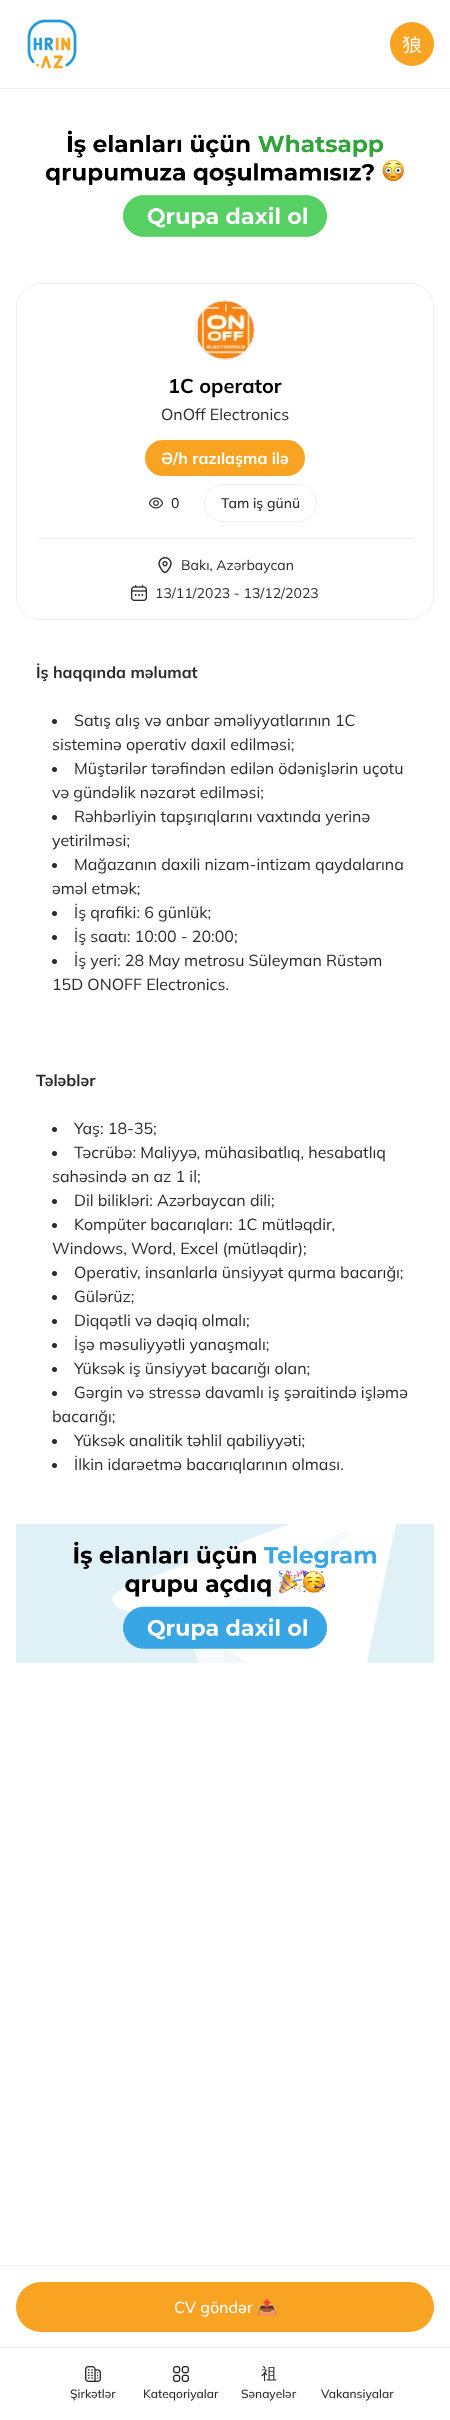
<!DOCTYPE html>
<meta charset="utf-8">
<style>body { margin: 0 } canvas { display: block }</style>
<canvas id="canvas" width="450" height="2420"></canvas>
<img id="img1" src="images/1.png" hidden>
<img id="img2" src="images/2.png" hidden>
<img id="img3" src="images/3.png" hidden>
<img id="img4" src="images/4.png" hidden>
<img id="img5" src="images/5.png" hidden>
<img id="img6" src="images/6.png" hidden>
<img id="img7" src="images/7.png" hidden>
<img id="img8" src="images/8.png" hidden>
<img id="img9" src="images/9.png" hidden>
<script>
window.onload = function () {
    const canvas = document.getElementById('canvas');
    const context = canvas.getContext('2d');
    context.miterLimit = 4;
    context.fontKerning = 'normal';

    context.fillStyle = 'rgb(255, 255, 255)';
    context.fillRect(0, 0, 450, 2420);
    context.fillStyle = 'rgb(240, 240, 240)';
    context.fillRect(0, 88, 450, 1);
    context.drawImage(document.getElementById('img1'), 27, 19, 50, 50);
    context.fillStyle = 'rgb(249, 163, 34)';
    context.beginPath();
    context.arc(412, 44, 22, 0, 2 * Math.PI);
    context.fill();
    context.drawImage(document.getElementById('img2'), 45, 130, 359, 107);
    context.beginPath();
    context.roundRect(16.5, 283.5, 417, 336, 23.5);
    context.strokeStyle = 'rgb(240, 240, 240)';
    context.stroke();
    context.beginPath();
    context.arc(225, 330, 29.5, 0, 2 * Math.PI);
    context.strokeStyle = 'rgb(230, 230, 230)';
    context.stroke();
    context.drawImage(document.getElementById('img3'), 196, 301, 58, 58);
    context.beginPath();
    context.roundRect(145, 440, 160, 36, 18);
    context.fill();
    context.drawImage(document.getElementById('img4'), 149, 497, 14, 12);
    context.beginPath();
    context.roundRect(204.5, 484.5, 112, 37, 18.5);
    context.strokeStyle = 'rgb(240, 240, 240)';
    context.stroke();
    context.fillStyle = 'rgb(240, 240, 240)';
    context.fillRect(37, 538, 376, 1);
    context.drawImage(document.getElementById('img5'), 158, 557, 14, 16);
    context.drawImage(document.getElementById('img6'), 131, 585, 16, 16);
    context.fillStyle = 'rgb(42, 42, 42)';
    context.beginPath();
    context.arc(54.5, 721.5, 2.5, 0, 2 * Math.PI);
    context.fill();
    context.beginPath();
    context.arc(54.5, 769.5, 2.5, 0, 2 * Math.PI);
    context.fill();
    context.beginPath();
    context.arc(54.5, 817.5, 2.5, 0, 2 * Math.PI);
    context.fill();
    context.beginPath();
    context.arc(54.5, 865.5, 2.5, 0, 2 * Math.PI);
    context.fill();
    context.beginPath();
    context.arc(54.5, 913.5, 2.5, 0, 2 * Math.PI);
    context.fill();
    context.beginPath();
    context.arc(54.5, 937.5, 2.5, 0, 2 * Math.PI);
    context.fill();
    context.beginPath();
    context.arc(54.5, 961.5, 2.5, 0, 2 * Math.PI);
    context.fill();
    context.beginPath();
    context.arc(54.5, 1129.5, 2.5, 0, 2 * Math.PI);
    context.fill();
    context.beginPath();
    context.arc(54.5, 1153.5, 2.5, 0, 2 * Math.PI);
    context.fill();
    context.beginPath();
    context.arc(54.5, 1201.5, 2.5, 0, 2 * Math.PI);
    context.fill();
    context.beginPath();
    context.arc(54.5, 1225.5, 2.5, 0, 2 * Math.PI);
    context.fill();
    context.beginPath();
    context.arc(54.5, 1273.5, 2.5, 0, 2 * Math.PI);
    context.fill();
    context.beginPath();
    context.arc(54.5, 1297.5, 2.5, 0, 2 * Math.PI);
    context.fill();
    context.beginPath();
    context.arc(54.5, 1321.5, 2.5, 0, 2 * Math.PI);
    context.fill();
    context.beginPath();
    context.arc(54.5, 1345.5, 2.5, 0, 2 * Math.PI);
    context.fill();
    context.beginPath();
    context.arc(54.5, 1369.5, 2.5, 0, 2 * Math.PI);
    context.fill();
    context.beginPath();
    context.arc(54.5, 1393.5, 2.5, 0, 2 * Math.PI);
    context.fill();
    context.beginPath();
    context.arc(54.5, 1441.5, 2.5, 0, 2 * Math.PI);
    context.fill();
    context.beginPath();
    context.arc(54.5, 1465.5, 2.5, 0, 2 * Math.PI);
    context.fill();
    context.fillStyle = 'rgb(240, 240, 240)';
    context.fillRect(0, 2265, 450, 1);
    context.fillStyle = 'rgb(249, 163, 34)';
    context.beginPath();
    context.roundRect(16, 2282, 418, 50, 25);
    context.fill();
    context.drawImage(document.getElementById('img7'), 16, 1524, 418, 139);
    context.fillStyle = 'rgb(240, 240, 240)';
    context.fillRect(0, 2347, 450, 1);
    context.drawImage(document.getElementById('img8'), 85, 2366, 16, 16);
    context.drawImage(document.getElementById('img9'), 173, 2366, 16, 16);
    context.font = '500 20px WenQuanYi Zen Hei';
    context.fillStyle = 'rgb(255, 255, 255)';
    context.fillText('狼', 402, 51);
    context.font = 'bold 20px Mulish';
    context.fillStyle = 'rgb(0, 0, 0)';
    context.fillText('1C operator', 168, 393);
    context.font = '16px Mulish';
    context.fillStyle = 'rgb(42, 42, 42)';
    context.fillText('OnOff Electronics', 161, 420);
    context.font = 'bold 16px Mulish';
    context.fillStyle = 'rgb(255, 255, 255)';
    context.fillText('Ə/h razılaşma ilə', 161, 464);
    context.font = '14px Mulish';
    context.fillStyle = 'rgb(0, 0, 0)';
    context.fillText('0', 171, 508);
    context.font = '500 14px Mulish';
    context.fillStyle = 'rgb(42, 42, 42)';
    context.fillText('Tam iş günü', 221, 508);
    context.font = '14px Mulish';
    context.fillText('Bakı, Azərbaycan', 181, 570);
    context.fillText('13/11/2023 - 13/12/2023', 155, 598);
    context.font = 'bold 16px Mulish';
    context.fillText('İş haqqında məlumat', 36, 678);
    context.font = '16px Mulish';
    context.fillText('Satış alış və anbar əməliyyatlarının 1C', 74, 726);
    context.fillText('sisteminə operativ daxil edilməsi;', 52, 750);
    context.fillText('Müştərilər tərəfindən edilən ödənişlərin uçotu', 74, 774);
    context.fillText('və gündəlik nəzarət edilməsi;', 52, 798);
    context.fillText('Rəhbərliyin tapşırıqlarını vaxtında yerinə', 74, 822);
    context.fillText('yetirilməsi;', 52, 846);
    context.fillText('Mağazanın daxili nizam-intizam qaydalarına', 74, 870);
    context.fillText('əməl etmək;', 52, 894);
    context.fillText('İş qrafiki: 6 günlük;', 74, 918);
    context.fillText('İş saatı: 10:00 - 20:00;', 74, 942);
    context.fillText('İş yeri: 28 May metrosu Süleyman Rüstəm', 74, 966);
    context.fillText('15D ONOFF Electronics.', 52, 990);
    context.font = 'bold 16px Mulish';
    context.fillText('Tələblər', 36, 1086);
    context.font = '16px Mulish';
    context.fillText('Yaş: 18-35;', 74, 1134);
    context.fillText('Təcrübə: Maliyyə, mühasibatlıq, hesabatlıq', 74, 1158);
    context.fillText('sahəsində ən az 1 il;', 52, 1182);
    context.fillText('Dil bilikləri: Azərbaycan dili;', 74, 1206);
    context.fillText('Kompüter bacarıqları: 1C mütləqdir,', 74, 1230);
    context.fillText('Windows, Word, Excel (mütləqdir);', 52, 1254);
    context.fillText('Operativ, insanlarla ünsiyyət qurma bacarığı;', 74, 1278);
    context.fillText('Gülərüz;', 74, 1302);
    context.fillText('Diqqətli və dəqiq olmalı;', 74, 1326);
    context.fillText('İşə məsuliyyətli yanaşmalı;', 74, 1350);
    context.fillText('Yüksək iş ünsiyyət bacarığı olan;', 74, 1374);
    context.fillText('Gərgin və stressə davamlı iş şəraitində işləmə', 74, 1398);
    context.fillText('bacarığı;', 52, 1422);
    context.fillText('Yüksək analitik təhlil qabiliyyəti;', 74, 1446);
    context.fillText('İlkin idarəetmə bacarıqlarının olması.', 74, 1470);
    context.font = '500 16px Mulish';
    context.fillStyle = 'rgb(255, 255, 255)';
    context.fillText('CV göndər', 174, 2313);
    context.font = '16px Noto Color Emoji';
    context.fillText('📤', 257, 2313);
    context.font = '500 12px Mulish';
    context.fillStyle = 'rgb(42, 42, 42)';
    context.fillText('Şirkətlər', 70, 2398);
    context.fillText('Kateqoriyalar', 143, 2398);
    context.font = '500 16px WenQuanYi Zen Hei';
    context.fillText('祖', 261, 2379);
    context.font = '500 12px Mulish';
    context.fillText('Sənayelər', 241, 2398);
    context.fillText('Vakansiyalar', 321, 2398);
};
</script>
